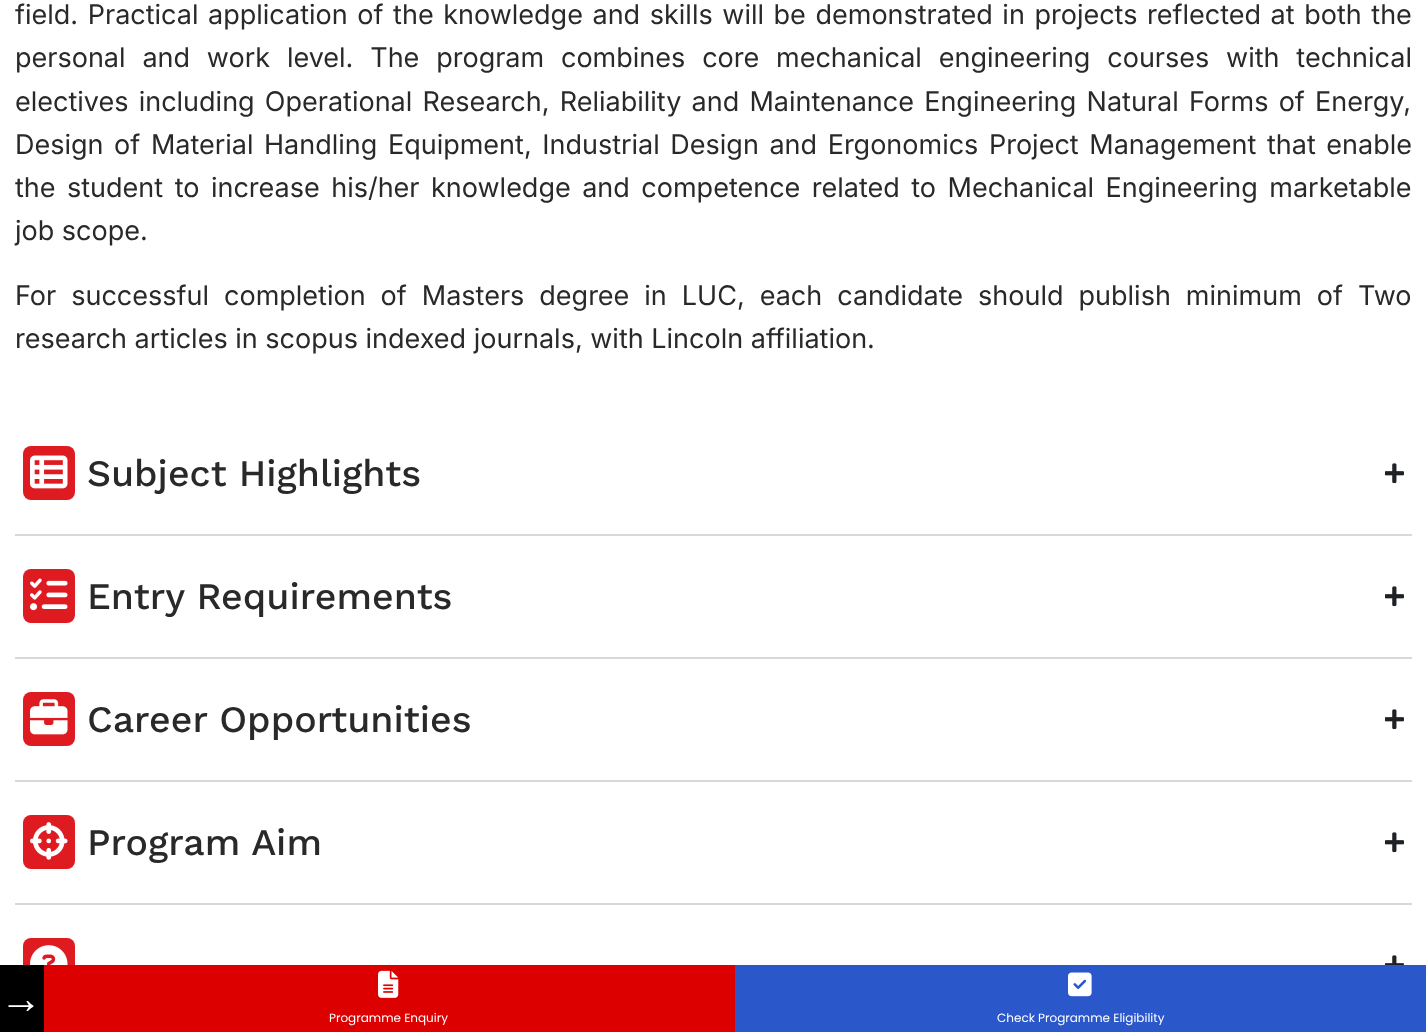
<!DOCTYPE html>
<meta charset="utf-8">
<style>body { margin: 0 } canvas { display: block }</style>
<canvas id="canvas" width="1426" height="1032"></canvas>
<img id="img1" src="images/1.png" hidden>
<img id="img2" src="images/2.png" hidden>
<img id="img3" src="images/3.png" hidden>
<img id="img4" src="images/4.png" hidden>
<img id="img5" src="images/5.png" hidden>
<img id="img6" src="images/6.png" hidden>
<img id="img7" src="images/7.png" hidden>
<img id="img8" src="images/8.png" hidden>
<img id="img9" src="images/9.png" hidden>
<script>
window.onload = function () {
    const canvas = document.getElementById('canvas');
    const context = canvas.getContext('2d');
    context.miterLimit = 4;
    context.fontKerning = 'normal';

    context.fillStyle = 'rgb(255, 255, 255)';
    context.fillRect(0, 0, 1426, 1032);
    context.fillStyle = 'rgb(213, 216, 220)';
    context.fillRect(15, 534, 1397, 2);
    context.fillStyle = 'rgb(223, 27, 34)';
    context.beginPath();
    context.roundRect(23, 446, 52, 54, 8);
    context.fill();
    context.drawImage(document.getElementById('img1'), 30, 455, 38, 34);
    context.drawImage(document.getElementById('img2'), 1385, 463, 19, 21);
    context.fillStyle = 'rgb(213, 216, 220)';
    context.fillRect(15, 657, 1397, 2);
    context.fillStyle = 'rgb(223, 27, 34)';
    context.beginPath();
    context.roundRect(23, 569, 52, 54, 8);
    context.fill();
    context.drawImage(document.getElementById('img3'), 30, 578, 38, 33);
    context.drawImage(document.getElementById('img2'), 1385, 586, 19, 21);
    context.fillStyle = 'rgb(213, 216, 220)';
    context.fillRect(15, 780, 1397, 2);
    context.fillStyle = 'rgb(223, 27, 34)';
    context.beginPath();
    context.roundRect(23, 692, 52, 54, 8);
    context.fill();
    context.drawImage(document.getElementById('img4'), 30, 699, 38, 36);
    context.drawImage(document.getElementById('img2'), 1385, 709, 19, 21);
    context.fillStyle = 'rgb(213, 216, 220)';
    context.fillRect(15, 903, 1397, 2);
    context.fillStyle = 'rgb(223, 27, 34)';
    context.beginPath();
    context.roundRect(23, 815, 52, 54, 8);
    context.fill();
    context.drawImage(document.getElementById('img5'), 30, 822, 38, 38);
    context.drawImage(document.getElementById('img2'), 1385, 832, 19, 21);
    context.beginPath();
    context.roundRect(23, 938, 52, 54, 8);
    context.fill();
    context.drawImage(document.getElementById('img6'), 30, 945, 38, 20);
    context.drawImage(document.getElementById('img7'), 1385, 955, 19, 10);
    context.fillStyle = 'rgb(0, 0, 0)';
    context.fillRect(0, 965, 44, 67);
    context.fillStyle = 'rgb(221, 0, 0)';
    context.fillRect(44, 965, 691, 67);
    context.drawImage(document.getElementById('img8'), 378, 970, 21, 28);
    context.fillStyle = 'rgb(42, 87, 201)';
    context.fillRect(735, 965, 691, 67);
    context.drawImage(document.getElementById('img9'), 1068, 972, 24, 25);
    context.wordSpacing = '2px';
    context.font = '27px Inter';
    context.fillStyle = 'rgb(41, 41, 41)';
    context.fillText('field. Practical application of the knowledge and skills will be demonstrated in projects reflected at both the', 15, 24);
    context.wordSpacing = '9.25px';
    context.fillText('personal and work level. The program combines core mechanical engineering courses with technical', 15, 67);
    context.wordSpacing = '2.6px';
    context.fillText('electives including Operational Research, Reliability and Maintenance Engineering Natural Forms of Energy,', 15, 111);
    context.wordSpacing = '3px';
    context.fillText('Design of Material Handling Equipment, Industrial Design and Ergonomics Project Management that enable', 15, 154);
    context.wordSpacing = '3.9px';
    context.fillText('the student to increase his/her knowledge and competence related to Mechanical Engineering marketable', 15, 197);
    context.wordSpacing = '0px';
    context.fillText('job scope.', 15, 240);
    context.wordSpacing = '7.4px';
    context.fillText('For successful completion of Masters degree in LUC, each candidate should publish minimum of Two', 15, 305);
    context.wordSpacing = '0px';
    context.fillText('research articles in scopus indexed journals, with Lincoln affiliation.', 15, 348);
    context.font = '500 37.5px Work Sans';
    context.fillText('Subject Highlights', 87, 486);
    context.fillText('Entry Requirements', 87, 609);
    context.fillText('Career Opportunities', 87, 732);
    context.fillText('Program Aim', 87, 855);
    context.font = '42px Liberation Serif';
    context.fillStyle = 'rgb(255, 255, 255)';
    context.fillText('→', 0, 1013);
    context.font = '12px Poppins';
    context.fillText('Programme Enquiry', 329, 1022);
    context.fillText('Check Programme Eligibility', 997, 1022);
};
</script>
